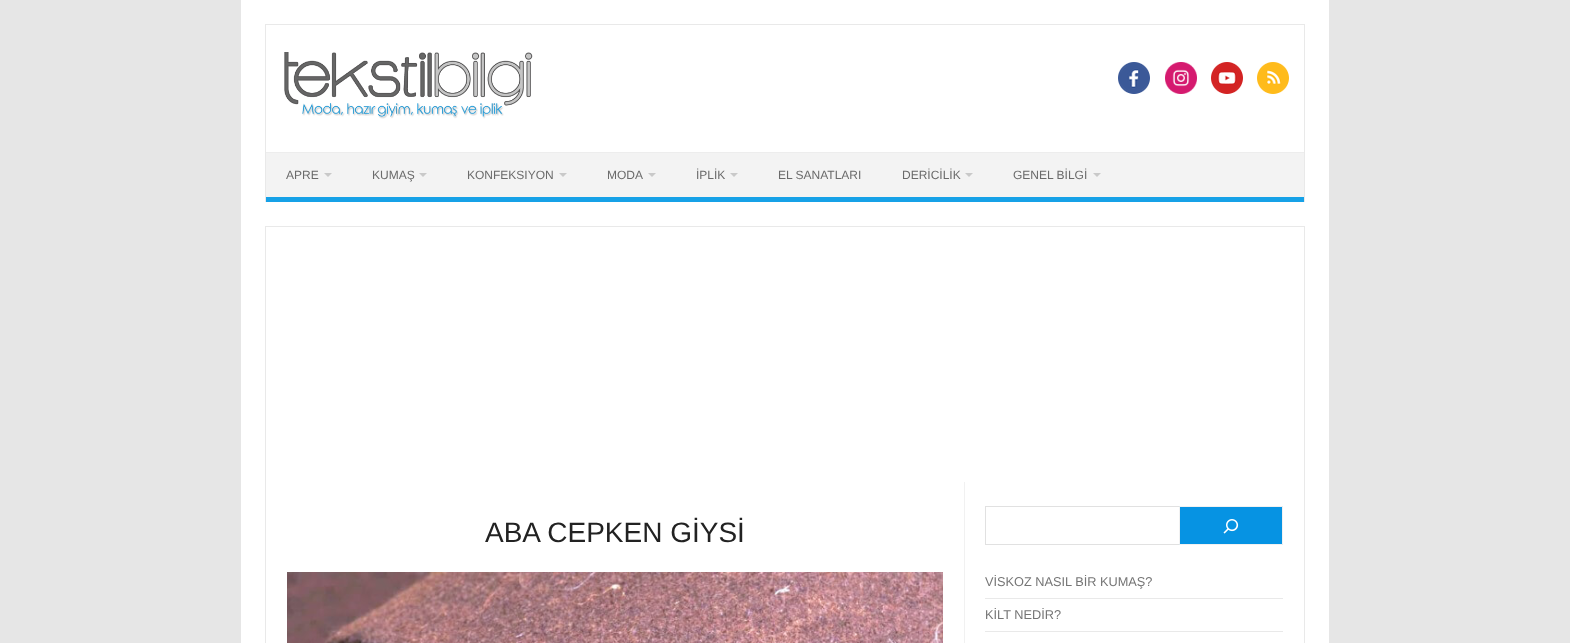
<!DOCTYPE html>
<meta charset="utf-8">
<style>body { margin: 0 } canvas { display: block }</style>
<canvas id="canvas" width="1570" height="643"></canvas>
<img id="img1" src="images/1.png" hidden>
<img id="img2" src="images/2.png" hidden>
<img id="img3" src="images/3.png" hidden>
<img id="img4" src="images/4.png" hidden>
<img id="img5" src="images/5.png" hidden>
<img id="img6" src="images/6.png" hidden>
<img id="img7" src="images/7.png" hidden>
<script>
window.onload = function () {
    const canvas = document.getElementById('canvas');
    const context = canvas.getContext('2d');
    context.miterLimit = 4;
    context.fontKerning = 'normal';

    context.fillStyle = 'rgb(230, 230, 230)';
    context.fillRect(0, 0, 1570, 643);
    context.fillStyle = 'rgb(255, 255, 255)';
    context.fillRect(241, 0, 1088, 643);
    context.fillStyle = 'rgb(233, 233, 233)';
    context.fillRect(265, 24, 1040, 1);
    context.fillRect(1304, 24, 1, 178);
    context.fillRect(265, 24, 1, 178);
    context.drawImage(document.getElementById('img1'), 284, 52, 249, 67);
    context.drawImage(document.getElementById('img2'), 1118, 62, 32, 32);
    context.drawImage(document.getElementById('img3'), 1165, 62, 32, 32);
    context.drawImage(document.getElementById('img4'), 1211, 62, 32, 32);
    context.drawImage(document.getElementById('img5'), 1257, 62, 32, 32);
    context.fillStyle = 'rgb(243, 243, 243)';
    context.fillRect(266, 153, 1038, 44);
    context.fillStyle = 'rgb(237, 237, 237)';
    context.fillRect(266, 152, 1038, 1);
    context.fillStyle = 'rgb(22, 161, 231)';
    context.fillRect(266, 197, 1038, 5);
    context.fillStyle = 'rgb(201, 201, 201)';
    context.beginPath();
    context.moveTo(324, 173);
    context.lineTo(332, 173);
    context.lineTo(328, 177);
    context.closePath();
    context.fill();
    context.beginPath();
    context.moveTo(419, 173);
    context.lineTo(427, 173);
    context.lineTo(423, 177);
    context.closePath();
    context.fill();
    context.beginPath();
    context.moveTo(559, 173);
    context.lineTo(567, 173);
    context.lineTo(563, 177);
    context.closePath();
    context.fill();
    context.beginPath();
    context.moveTo(648, 173);
    context.lineTo(656, 173);
    context.lineTo(652, 177);
    context.closePath();
    context.fill();
    context.beginPath();
    context.moveTo(730, 173);
    context.lineTo(738, 173);
    context.lineTo(734, 177);
    context.closePath();
    context.fill();
    context.beginPath();
    context.moveTo(965, 173);
    context.lineTo(973, 173);
    context.lineTo(969, 177);
    context.closePath();
    context.fill();
    context.beginPath();
    context.moveTo(1093, 173);
    context.lineTo(1101, 173);
    context.lineTo(1097, 177);
    context.closePath();
    context.fill();
    context.strokeStyle = 'rgb(233, 233, 233)';
    context.strokeRect(265.5, 226.5, 1039, 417);
    context.fillStyle = 'rgb(241, 241, 241)';
    context.fillRect(964, 482, 1, 161);
    context.drawImage(document.getElementById('img6'), 287, 572, 656, 71);
    context.strokeStyle = 'rgb(225, 225, 225)';
    context.strokeRect(985.5, 506.5, 195, 38);
    context.fillStyle = 'rgb(6, 147, 227)';
    context.beginPath();
    context.rect(1179.5, 506.5, 103, 38);
    context.fill();
    context.strokeStyle = 'rgb(241, 241, 241)';
    context.stroke();
    context.drawImage(document.getElementById('img7'), 1223, 519, 16, 15);
    context.fillStyle = 'rgb(233, 233, 233)';
    context.fillRect(985, 598, 298, 1);
    context.fillRect(985, 631, 298, 1);
    context.font = '12px Liberation Sans';
    context.fillStyle = 'rgb(106, 106, 106)';
    context.fillText('APRE', 286, 179);
    context.fillText('KUMAŞ', 372, 179);
    context.fillText('KONFEKSIYON', 467, 179);
    context.fillText('MODA', 607, 179);
    context.fillText('İPLİK', 696, 179);
    context.fillText('EL SANATLARI', 778, 179);
    context.fillText('DERİCİLİK', 902, 179);
    context.fillText('GENEL BİLGİ', 1013, 179);
    context.font = '28px Liberation Sans';
    context.fillStyle = 'rgb(34, 34, 34)';
    context.fillText('ABA CEPKEN GİYSİ', 485, 542);
    context.font = '12.75px Liberation Sans';
    context.fillStyle = 'rgb(117, 117, 117)';
    context.fillText('VİSKOZ NASIL BİR KUMAŞ?', 985, 586);
    context.fillText('KİLT NEDİR?', 985, 619);
};
</script>
